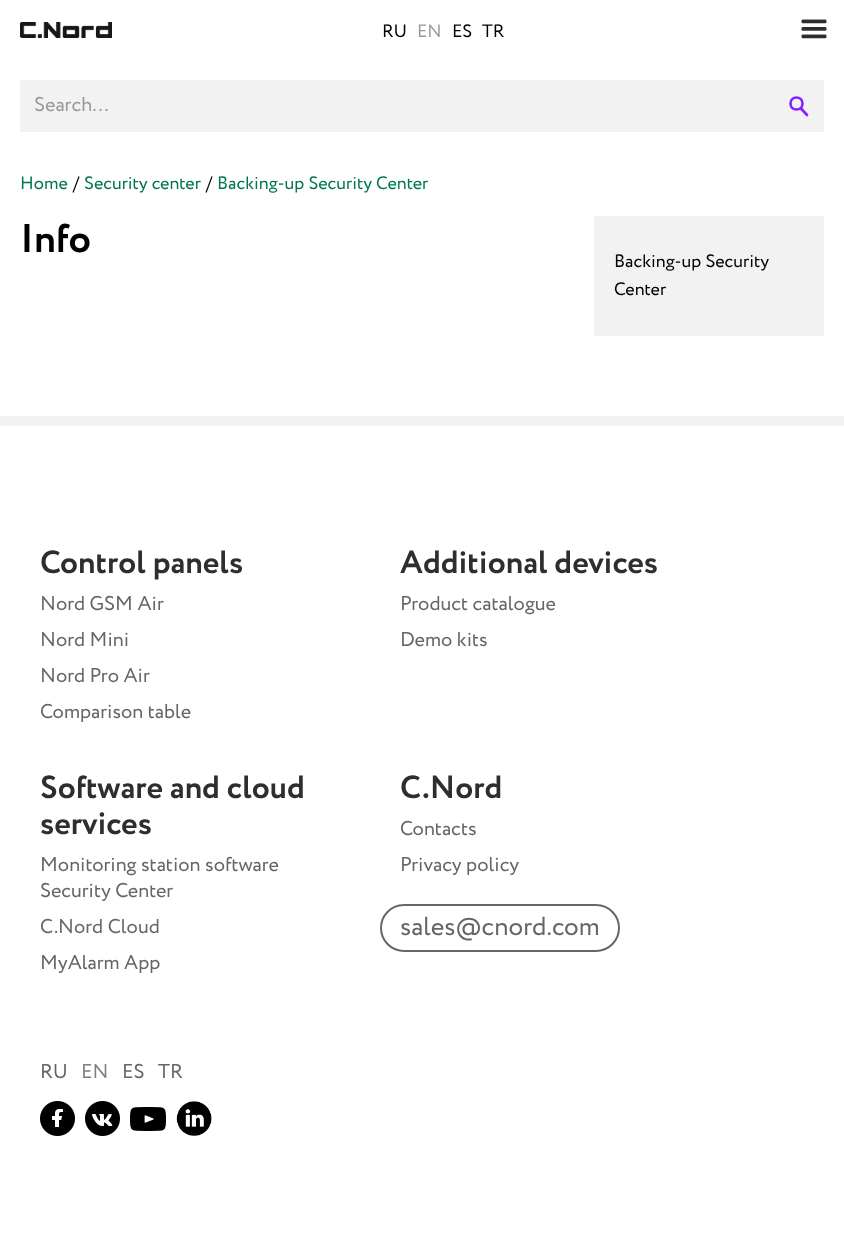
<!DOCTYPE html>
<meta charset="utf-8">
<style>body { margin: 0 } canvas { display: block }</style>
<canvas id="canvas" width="844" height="1258"></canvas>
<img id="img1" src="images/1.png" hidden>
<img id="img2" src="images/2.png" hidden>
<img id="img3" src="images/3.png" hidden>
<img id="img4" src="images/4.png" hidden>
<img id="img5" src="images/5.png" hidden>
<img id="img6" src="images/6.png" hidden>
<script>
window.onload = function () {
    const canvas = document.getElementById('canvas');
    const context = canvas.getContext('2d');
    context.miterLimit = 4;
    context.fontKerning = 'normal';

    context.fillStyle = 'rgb(255, 255, 255)';
    context.fillRect(0, 0, 844, 1258);
    context.drawImage(document.getElementById('img1'), 20, 22, 92, 16);
    context.drawImage(document.getElementById('img2'), 801, 19, 26, 20);
    context.fillStyle = 'rgb(242, 242, 242)';
    context.fillRect(20, 80, 804, 52);
    context.beginPath();
    context.moveTo(802.5, 103.5);
    context.bezierCurveTo(802.5, 111.5, 790.5, 111.5, 790.5, 103.5);
    context.bezierCurveTo(790.5, 95.5, 802.5, 95.5, 802.5, 103.5);
    context.closePath();
    context.strokeStyle = 'rgb(132, 33, 255)';
    context.lineWidth = 2.6;
    context.stroke();
    context.beginPath();
    context.moveTo(801, 108.5);
    context.lineTo(807, 115);
    context.lineCap = 'round';
    context.stroke();
    context.fillRect(0, 416, 844, 10);
    context.fillRect(594, 216, 230, 120);
    context.beginPath();
    context.roundRect(381, 905, 238, 46, 23);
    context.strokeStyle = 'rgb(102, 102, 102)';
    context.lineWidth = 2;
    context.stroke();
    context.drawImage(document.getElementById('img3'), 40, 1101, 35, 35);
    context.drawImage(document.getElementById('img4'), 85, 1101, 35, 35);
    context.drawImage(document.getElementById('img5'), 130, 1107, 36, 24);
    context.drawImage(document.getElementById('img6'), 176, 1101, 36, 35);
    context.font = '18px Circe';
    context.fillStyle = 'rgb(0, 0, 0)';
    context.fillText('RU', 382, 37);
    context.fillStyle = 'rgb(153, 153, 153)';
    context.fillText('EN', 417, 37);
    context.fillStyle = 'rgb(0, 0, 0)';
    context.fillText('ES', 452, 37);
    context.fillText('TR', 482, 37);
    context.font = '20px Circe';
    context.fillStyle = 'rgb(153, 153, 153)';
    context.fillText('Search…', 34, 111);
    context.font = '18px Circe';
    context.fillStyle = 'rgb(0, 119, 73)';
    context.fillText('Home', 20, 189);
    context.fillStyle = 'rgb(0, 0, 0)';
    context.fillText('/', 73, 189);
    context.fillStyle = 'rgb(0, 119, 73)';
    context.fillText('Security center', 84, 189);
    context.fillStyle = 'rgb(0, 0, 0)';
    context.fillText('/', 206, 189);
    context.fillStyle = 'rgb(0, 119, 73)';
    context.fillText('Backing-up Security Center', 217, 189);
    context.font = 'bold 40px Circe';
    context.fillStyle = 'rgb(0, 0, 0)';
    context.fillText('Info', 20, 252);
    context.font = '18px Circe';
    context.fillText('Backing-up Security', 614, 267);
    context.fillText('Center', 614, 295);
    context.font = 'bold 32px Circe';
    context.fillStyle = 'rgb(46, 46, 46)';
    context.fillText('Control panels', 40, 573);
    context.font = '20px Circe';
    context.fillStyle = 'rgb(102, 102, 102)';
    context.fillText('Nord GSM Air', 40, 610);
    context.fillText('Nord Mini', 40, 646);
    context.fillText('Nord Pro Air', 40, 682);
    context.fillText('Comparison table', 40, 718);
    context.font = 'bold 32px Circe';
    context.fillStyle = 'rgb(46, 46, 46)';
    context.fillText('Additional devices', 400, 573);
    context.font = '20px Circe';
    context.fillStyle = 'rgb(102, 102, 102)';
    context.fillText('Product catalogue', 400, 610);
    context.fillText('Demo kits', 400, 646);
    context.font = 'bold 32px Circe';
    context.fillStyle = 'rgb(46, 46, 46)';
    context.fillText('Software and cloud', 40, 798);
    context.fillText('services', 40, 834);
    context.font = '20px Circe';
    context.fillStyle = 'rgb(102, 102, 102)';
    context.fillText('Monitoring station software', 40, 871);
    context.fillText('Security Center', 40, 897);
    context.fillText('C.Nord Cloud', 40, 933);
    context.fillText('MyAlarm App', 40, 969);
    context.font = 'bold 32px Circe';
    context.fillStyle = 'rgb(46, 46, 46)';
    context.fillText('C.Nord', 400, 798);
    context.font = '20px Circe';
    context.fillStyle = 'rgb(102, 102, 102)';
    context.fillText('Contacts', 400, 835);
    context.fillText('Privacy policy', 400, 871);
    context.font = '26px Circe';
    context.fillText('sales@cnord.com', 400, 935);
    context.font = '20px Circe';
    context.fillText('RU', 40, 1078);
    context.fillStyle = 'rgb(128, 128, 128)';
    context.fillText('EN', 81, 1078);
    context.fillStyle = 'rgb(102, 102, 102)';
    context.fillText('ES', 122, 1078);
    context.fillText('TR', 158, 1078);
};
</script>
